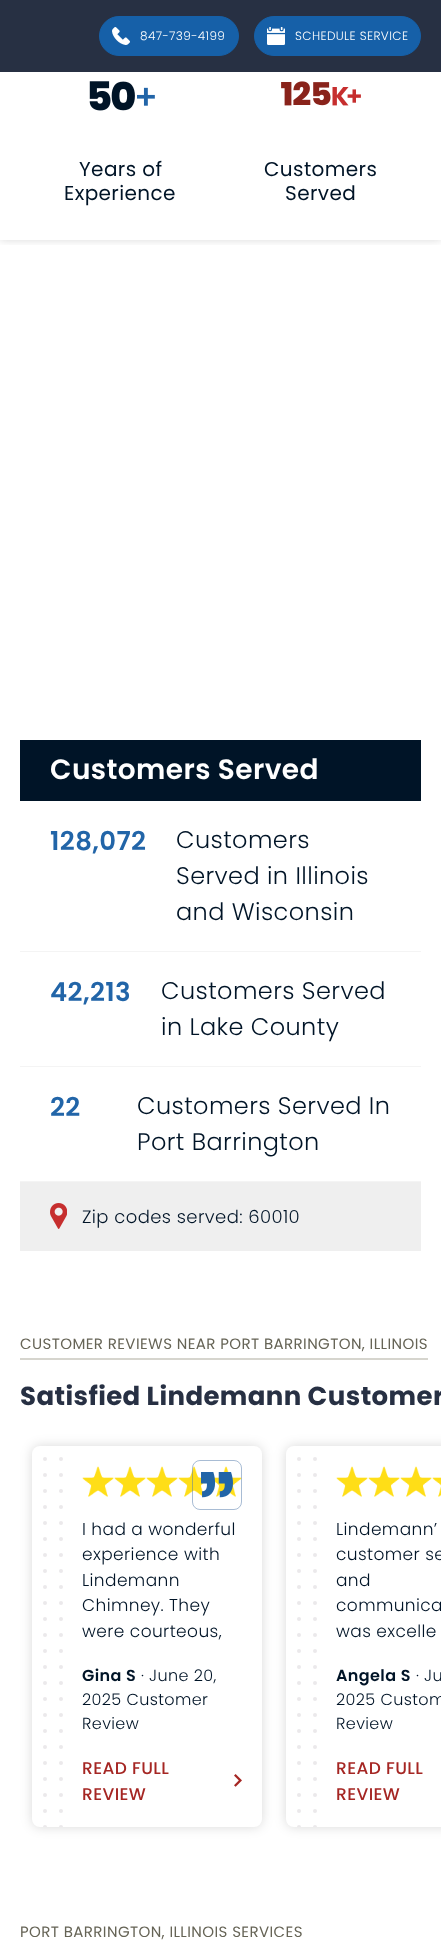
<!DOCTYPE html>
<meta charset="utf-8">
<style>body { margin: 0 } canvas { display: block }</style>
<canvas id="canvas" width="441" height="1945"></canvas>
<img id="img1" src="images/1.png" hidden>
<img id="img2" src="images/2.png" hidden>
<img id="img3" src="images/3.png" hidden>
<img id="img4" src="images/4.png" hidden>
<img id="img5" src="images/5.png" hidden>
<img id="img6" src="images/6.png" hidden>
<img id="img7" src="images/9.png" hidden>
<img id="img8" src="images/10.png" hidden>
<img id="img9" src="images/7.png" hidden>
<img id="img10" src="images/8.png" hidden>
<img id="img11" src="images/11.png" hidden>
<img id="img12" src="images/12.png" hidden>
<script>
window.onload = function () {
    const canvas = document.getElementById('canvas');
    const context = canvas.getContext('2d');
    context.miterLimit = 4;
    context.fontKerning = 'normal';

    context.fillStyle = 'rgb(255, 255, 255)';
    context.fillRect(0, 0, 441, 1945);
    context.save();
    context.beginPath();
    context.rect(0, 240, 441, 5);
    context.clip();
    context.fillStyle = 'rgba(0, 0, 0, 0.15)';
    context.filter = 'blur(4.5px)';
    context.beginPath();
    context.rect(0, -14, 441, 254);
    context.fill();
    context.filter = 'none';
    context.restore();
    context.fillStyle = 'rgb(39, 48, 67)';
    context.fillRect(0, 0, 441, 72);
    context.fillStyle = 'rgb(22, 96, 168)';
    context.beginPath();
    context.roundRect(99.5, 16.5, 139, 39, 19.5);
    context.fill();
    context.strokeStyle = 'rgb(22, 96, 168)';
    context.stroke();
    context.drawImage(document.getElementById('img1'), 112, 27, 18, 18);
    context.beginPath();
    context.roundRect(254.5, 16.5, 166, 39, 19.5);
    context.fill();
    context.stroke();
    context.drawImage(document.getElementById('img2'), 267, 27, 18, 18);
    context.drawImage(document.getElementById('img3'), 89, 81, 66, 30);
    context.drawImage(document.getElementById('img4'), 281, 81, 80, 25);
    context.fillStyle = 'rgb(0, 20, 39)';
    context.fillRect(20, 740, 401, 61);
    context.fillStyle = 'rgb(244, 244, 244)';
    context.fillRect(20, 951, 401, 1);
    context.fillRect(20, 1066, 401, 1);
    context.fillRect(20, 1181, 401, 1);
    context.fillStyle = 'rgb(239, 239, 239)';
    context.fillRect(20, 1182, 401, 69);
    context.drawImage(document.getElementById('img5'), 50, 1203, 17, 26);
    context.fillStyle = 'rgb(214, 213, 206)';
    context.fillRect(20, 1358, 408, 2);
    context.fillStyle = 'rgba(0, 0, 0, 0.15)';
    context.filter = 'blur(6px)';
    context.beginPath();
    context.roundRect(32, 1446, 230, 381, 8);
    context.fill();
    context.filter = 'none';
    context.fillStyle = 'rgb(255, 255, 255)';
    context.beginPath();
    context.roundRect(32, 1446, 230, 381, 8);
    context.fill();
    context.drawImage(document.getElementById('img6'), 43, 1457, 20, 370);
    context.drawImage(document.getElementById('img7'), 178, 1466, 26, 31);
    context.drawImage(document.getElementById('img8'), 214, 1466, 28, 31);
    context.beginPath();
    context.roundRect(192.5, 1460.5, 49, 49, 7.5);
    context.strokeStyle = 'rgba(82, 122, 170, 0.5)';
    context.stroke();
    context.drawImage(document.getElementById('img9'), 201, 1472, 32, 26);
    context.drawImage(document.getElementById('img10'), 82, 1466, 32, 31);
    context.drawImage(document.getElementById('img10'), 114, 1466, 32, 31);
    context.drawImage(document.getElementById('img10'), 146, 1466, 32, 31);
    context.drawImage(document.getElementById('img11'), 234, 1774, 8, 13);
    context.fillStyle = 'rgba(0, 0, 0, 0.15)';
    context.filter = 'blur(6px)';
    context.beginPath();
    context.roundRect(286, 1446, 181, 381, 8);
    context.fill();
    context.filter = 'none';
    context.fillStyle = 'rgb(255, 255, 255)';
    context.beginPath();
    context.roundRect(286, 1446, 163, 381, 8);
    context.fill();
    context.drawImage(document.getElementById('img6'), 297, 1457, 20, 370);
    context.drawImage(document.getElementById('img10'), 336, 1466, 32, 31);
    context.drawImage(document.getElementById('img10'), 368, 1466, 32, 31);
    context.drawImage(document.getElementById('img10'), 400, 1466, 32, 31);
    context.drawImage(document.getElementById('img12'), 432, 1477, 9, 20);
    context.letterSpacing = '0.4px';
    context.font = '300 12px Poppins';
    context.fillText('847-739-4199', 140, 40);
    context.fillText('SCHEDULE SERVICE', 295, 40);
    context.font = '20px Poppins';
    context.fillStyle = 'rgb(0, 20, 39)';
    context.fillText('Years of', 79, 176);
    context.fillText('Experience', 64, 200);
    context.fillText('Customers', 264, 176);
    context.fillText('Served', 285, 200);
    context.font = '600 28px Poppins';
    context.fillStyle = 'rgb(255, 255, 255)';
    context.fillText('Customers Served', 50, 779);
    context.font = '600 26px Poppins';
    context.fillStyle = 'rgb(34, 101, 168)';
    context.fillText('128,072', 50, 850);
    context.font = '300 24px Poppins';
    context.fillStyle = 'rgb(0, 20, 39)';
    context.fillText('Customers', 176, 848);
    context.fillText('Served in Illinois', 176, 884);
    context.fillText('and Wisconsin', 176, 920);
    context.font = '600 26px Poppins';
    context.fillStyle = 'rgb(34, 101, 168)';
    context.fillText('42,213', 50, 1001);
    context.font = '300 24px Poppins';
    context.fillStyle = 'rgb(0, 20, 39)';
    context.fillText('Customers Served', 161, 999);
    context.fillText('in Lake County', 161, 1035);
    context.font = '600 26px Poppins';
    context.fillStyle = 'rgb(34, 101, 168)';
    context.fillText('22', 50, 1116);
    context.font = '300 24px Poppins';
    context.fillStyle = 'rgb(0, 20, 39)';
    context.fillText('Customers Served In', 137, 1114);
    context.fillText('Port Barrington', 137, 1150);
    context.font = '300 18px Poppins';
    context.fillText('Zip codes served: 60010', 82, 1223);
    context.font = '15px Poppins';
    context.fillStyle = 'rgb(102, 100, 86)';
    context.fillText('CUSTOMER REVIEWS NEAR PORT BARRINGTON, ILLINOIS', 20, 1349);
    context.font = 'bold 26px Poppins';
    context.fillStyle = 'rgb(39, 48, 67)';
    context.fillText('Satisfied Lindemann Customer', 20, 1405);
    context.font = '300 17px Poppins';
    context.fillStyle = 'rgb(0, 20, 39)';
    context.fillText('I had a wonderful', 82, 1535);
    context.fillText('experience with', 82, 1560);
    context.fillText('Lindemann', 82, 1586);
    context.fillText('Chimney. They', 82, 1611);
    context.fillText('were courteous,', 82, 1637);
    context.font = '600 16px Poppins';
    context.fillText('Gina S', 82, 1681);
    context.font = '300 16px Poppins';
    context.fillText('· June 20,', 141, 1681);
    context.fillText('2025 Customer', 82, 1705);
    context.fillText('Review', 82, 1729);
    context.font = '500 17px Poppins';
    context.fillStyle = 'rgb(165, 38, 35)';
    context.fillText('READ FULL', 82, 1774);
    context.fillText('REVIEW', 82, 1800);
    context.font = '300 17px Poppins';
    context.fillStyle = 'rgb(0, 20, 39)';
    context.fillText('Lindemann’', 336, 1535);
    context.fillText('customer se', 336, 1560);
    context.fillText('and', 336, 1586);
    context.fillText('communica', 336, 1611);
    context.fillText('was excelle', 336, 1637);
    context.font = '600 16px Poppins';
    context.fillText('Angela S', 336, 1681);
    context.font = '300 16px Poppins';
    context.fillText('· Ju', 416, 1681);
    context.fillText('2025 Custom', 336, 1705);
    context.fillText('Review', 336, 1729);
    context.font = '500 17px Poppins';
    context.fillStyle = 'rgb(165, 38, 35)';
    context.fillText('READ FULL', 336, 1774);
    context.fillText('REVIEW', 336, 1800);
    context.font = '15px Poppins';
    context.fillStyle = 'rgb(102, 100, 86)';
    context.fillText('PORT BARRINGTON, ILLINOIS SERVICES', 20, 1937);
};
</script>
